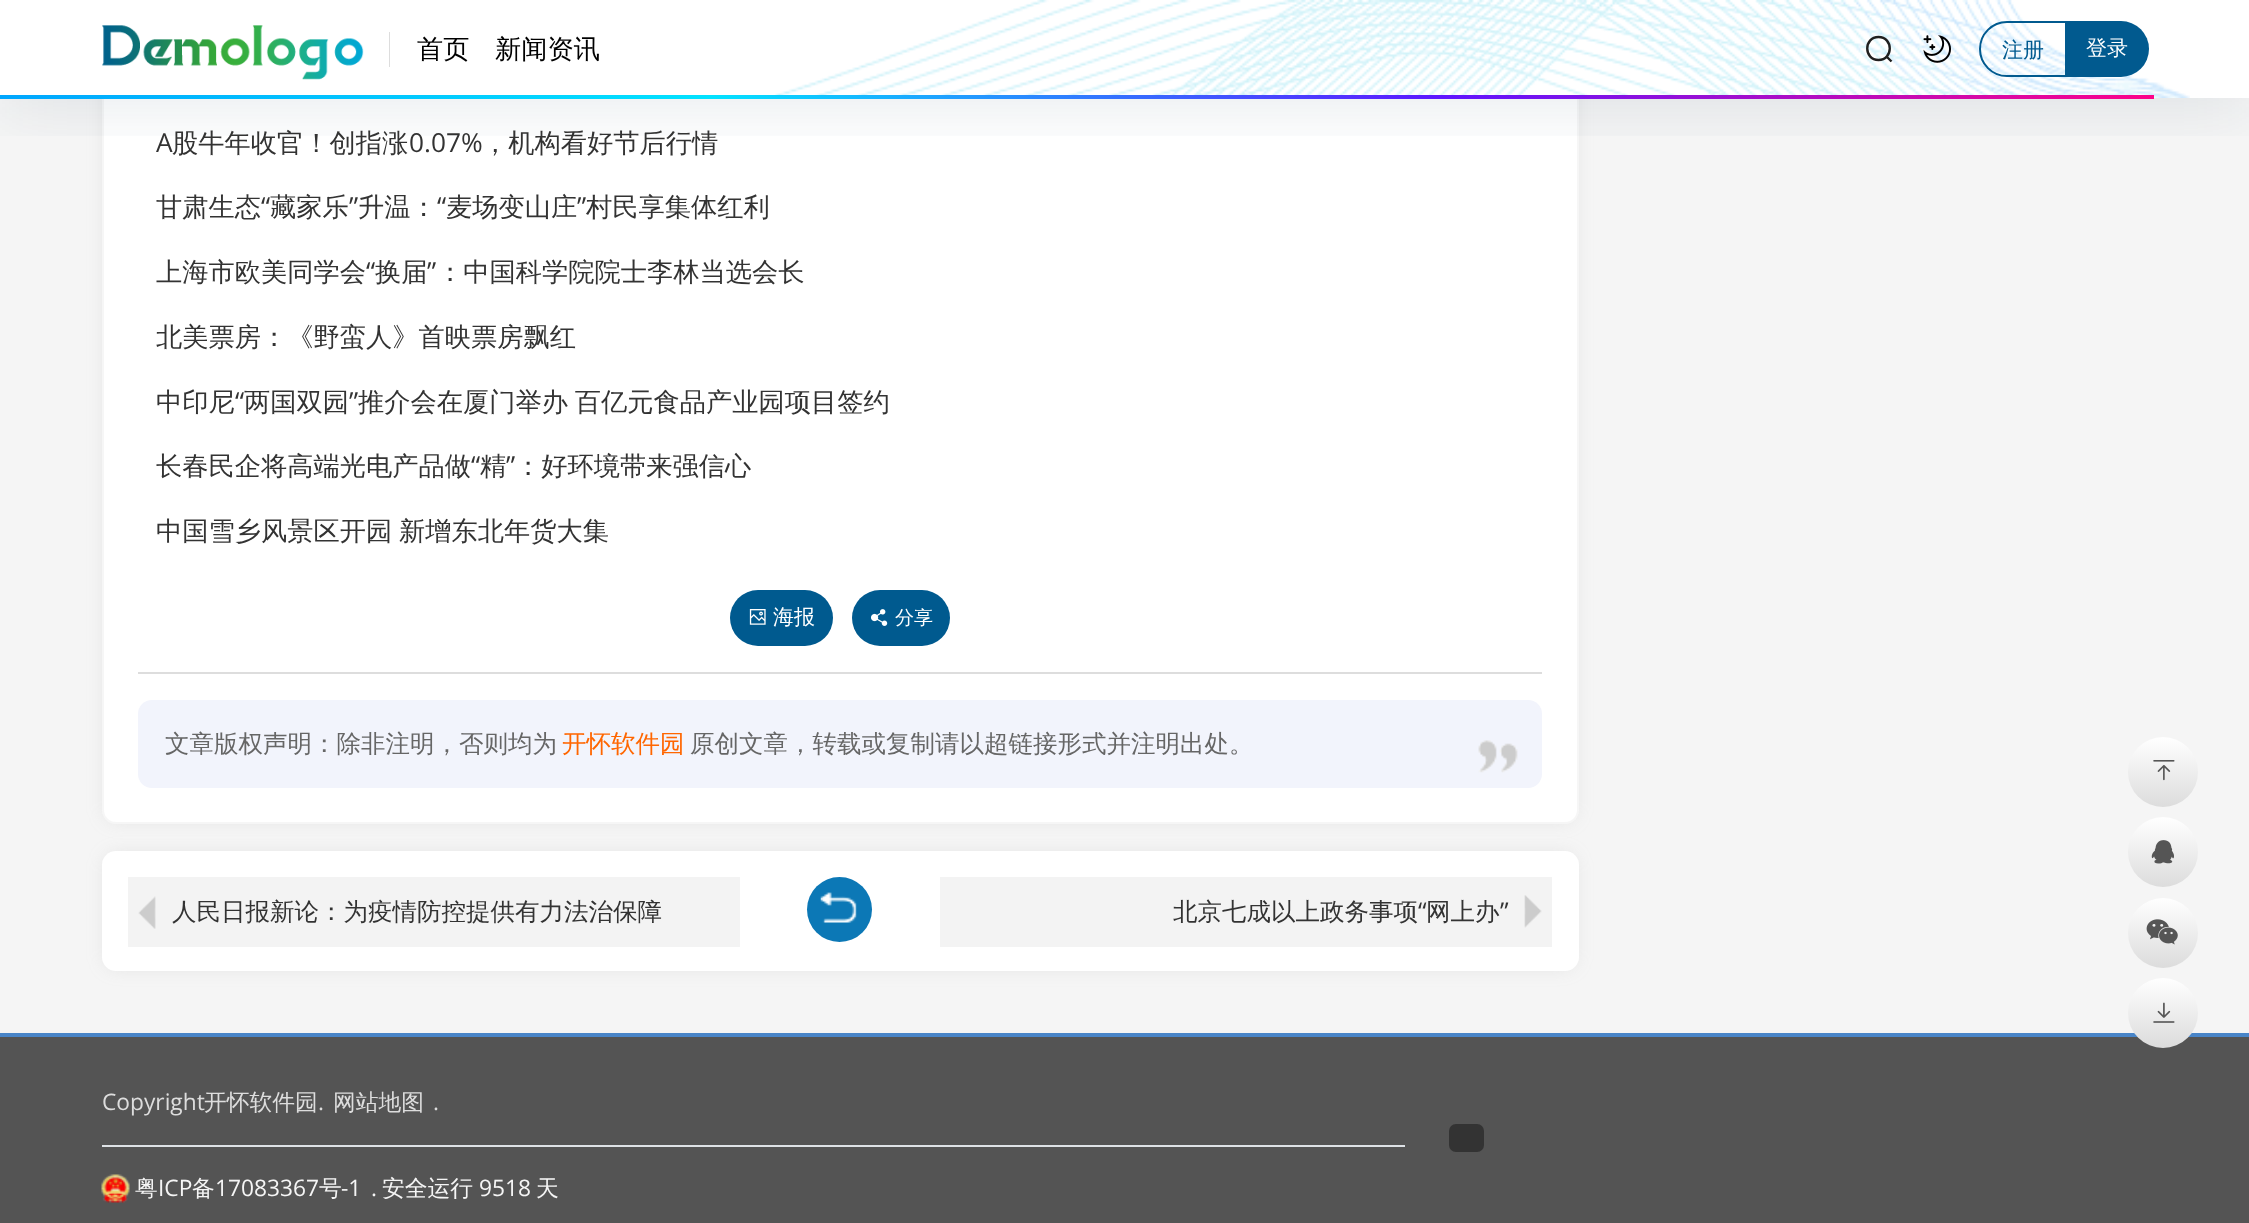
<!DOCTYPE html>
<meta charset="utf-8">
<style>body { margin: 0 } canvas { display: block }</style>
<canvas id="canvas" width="2249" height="1223"></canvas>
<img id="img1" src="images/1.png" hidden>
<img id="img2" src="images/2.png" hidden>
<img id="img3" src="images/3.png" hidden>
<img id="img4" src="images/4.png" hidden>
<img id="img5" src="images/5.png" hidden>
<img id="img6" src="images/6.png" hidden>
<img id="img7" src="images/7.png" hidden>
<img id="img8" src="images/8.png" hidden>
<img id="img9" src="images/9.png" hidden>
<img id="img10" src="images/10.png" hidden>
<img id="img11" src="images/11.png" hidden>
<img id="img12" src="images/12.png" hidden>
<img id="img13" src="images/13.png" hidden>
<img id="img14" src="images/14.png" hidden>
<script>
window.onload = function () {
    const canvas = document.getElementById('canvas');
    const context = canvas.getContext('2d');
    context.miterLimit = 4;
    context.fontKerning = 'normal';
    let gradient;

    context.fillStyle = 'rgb(245, 245, 245)';
    context.fillRect(0, 0, 2249, 1223);
    context.fillStyle = 'rgba(158, 158, 158, 0.2)';
    context.filter = 'blur(9px)';
    context.beginPath();
    context.roundRect(105, -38, 1470, 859, 11);
    context.fill();
    context.filter = 'none';
    context.fillStyle = 'rgb(255, 255, 255)';
    context.beginPath();
    context.roundRect(102, -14, 1477, 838, 14);
    context.fill();
    context.beginPath();
    context.roundRect(103, -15, 1475, 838, 13);
    context.strokeStyle = 'rgba(221, 221, 221, 0.28)';
    context.lineWidth = 2;
    context.stroke();
    context.save();
    context.beginPath();
    context.rect(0, 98, 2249, 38);
    context.clip();
    context.fillStyle = 'rgba(17, 58, 93, 0.1)';
    context.filter = 'blur(35px)';
    context.beginPath();
    context.rect(0, 9, 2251, 98);
    context.fill();
    context.filter = 'none';
    context.restore();
    context.fillStyle = 'rgba(255, 255, 255, 0.96)';
    context.fillRect(0, 0, 2249, 98);
    context.drawImage(document.getElementById('img1'), 775, 0, 1415, 98);
    context.drawImage(document.getElementById('img2'), 102, 25, 262, 55);
    context.save();
    context.beginPath();
    context.rect(102, 0, 288, 98);
    context.clip();
    gradient = context.createLinearGradient(364, 49, 465, 49);
    gradient.addColorStop(0, 'rgba(255, 255, 255, 0.02)');
    gradient.addColorStop(0.5, 'rgba(255, 255, 255, 0.58)');
    gradient.addColorStop(1, 'rgba(255, 255, 255, 0.02)');
    context.fillStyle = gradient;
    context.beginPath();
    context.moveTo(392, 0);
    context.lineTo(493, 0);
    context.lineTo(437, 98);
    context.lineTo(336, 98);
    context.closePath();
    context.fill();
    context.restore();
    context.fillStyle = 'rgb(221, 221, 221)';
    context.fillRect(389, 32, 1, 35);
    context.beginPath();
    context.moveTo(1878.5, 60);
    context.bezierCurveTo(1893.5, 60, 1893.5, 37, 1878.5, 37);
    context.bezierCurveTo(1863.5, 37, 1863.5, 60, 1878.5, 60);
    context.closePath();
    context.moveTo(1886.5, 56.5);
    context.lineTo(1891.5, 61.5);
    context.strokeStyle = 'rgb(31, 31, 31)';
    context.lineWidth = 2.4;
    context.lineJoin = 'round';
    context.stroke();
    context.drawImage(document.getElementById('img3'), 1923, 35, 28, 28);
    context.beginPath();
    context.roundRect(1980, 22, 86, 54, [27, 0, 0, 27]);
    context.strokeStyle = 'rgb(1, 90, 143)';
    context.lineWidth = 2;
    context.lineJoin = 'miter';
    context.stroke();
    context.fillStyle = 'rgb(1, 90, 143)';
    context.beginPath();
    context.roundRect(2065, 21, 84, 56, [0, 28, 28, 0]);
    context.fill();
    gradient = context.createLinearGradient(0, 96, 2154, 96);
    gradient.addColorStop(0, 'rgb(0, 166, 254)');
    gradient.addColorStop(0.33, 'rgb(2, 226, 255)');
    gradient.addColorStop(0.67, 'rgb(94, 22, 255)');
    gradient.addColorStop(1, 'rgb(253, 3, 137)');
    context.fillStyle = gradient;
    context.fillRect(0, 95, 2154, 4);
    context.fillStyle = 'rgb(221, 221, 221)';
    context.fillRect(138, 672, 1404, 2);
    context.fillStyle = 'rgb(0, 90, 143)';
    context.beginPath();
    context.roundRect(730, 590, 103, 56, 28);
    context.fill();
    context.drawImage(document.getElementById('img4'), 749, 609, 17, 16);
    context.beginPath();
    context.roundRect(852, 590, 98, 56, 28);
    context.fill();
    context.drawImage(document.getElementById('img5'), 871, 609, 17, 17);
    context.fillStyle = 'rgb(242, 244, 252)';
    context.beginPath();
    context.roundRect(138, 700, 1404, 88, 14);
    context.fill();
    context.drawImage(document.getElementById('img6'), 1478, 740, 40, 33);
    context.fillStyle = 'rgba(158, 158, 158, 0.2)';
    context.filter = 'blur(9px)';
    context.beginPath();
    context.roundRect(105, 854, 1470, 114, 11);
    context.fill();
    context.filter = 'none';
    context.fillStyle = 'rgb(255, 255, 255)';
    context.beginPath();
    context.roundRect(102, 851, 1477, 120, 14);
    context.fill();
    context.fillStyle = 'rgb(243, 243, 243)';
    context.fillRect(128, 877, 612, 70);
    context.drawImage(document.getElementById('img7'), 138, 896, 18, 33);
    context.fillStyle = 'rgb(12, 120, 182)';
    context.beginPath();
    context.arc(839.5, 909.5, 32.5, 0, 2 * Math.PI);
    context.fill();
    context.drawImage(document.getElementById('img8'), 820, 892, 37, 31);
    context.fillStyle = 'rgb(243, 243, 243)';
    context.fillRect(940, 877, 612, 70);
    context.drawImage(document.getElementById('img9'), 1524, 895, 18, 33);
    context.fillStyle = 'rgb(84, 84, 84)';
    context.fillRect(0, 1037, 2249, 186);
    context.fillStyle = 'rgb(73, 133, 200)';
    context.fillRect(0, 1033, 2249, 4);
    gradient = context.createLinearGradient(2163, 737, 2163, 807);
    gradient.addColorStop(0, 'rgb(255, 255, 255)');
    gradient.addColorStop(1, 'rgb(220, 220, 220)');
    context.fillStyle = gradient;
    context.beginPath();
    context.arc(2163, 772, 35, 0, 2 * Math.PI);
    context.fill();
    context.drawImage(document.getElementById('img10'), 2153, 760, 22, 21);
    gradient = context.createLinearGradient(2163, 817, 2163, 887);
    gradient.addColorStop(0, 'rgb(255, 255, 255)');
    gradient.addColorStop(1, 'rgb(220, 220, 220)');
    context.fillStyle = gradient;
    context.beginPath();
    context.arc(2163, 852, 35, 0, 2 * Math.PI);
    context.fill();
    context.drawImage(document.getElementById('img11'), 2151, 840, 23, 24);
    gradient = context.createLinearGradient(2163, 898, 2163, 968);
    gradient.addColorStop(0, 'rgb(255, 255, 255)');
    gradient.addColorStop(1, 'rgb(220, 220, 220)');
    context.fillStyle = gradient;
    context.beginPath();
    context.arc(2163, 933, 35, 0, 2 * Math.PI);
    context.fill();
    context.drawImage(document.getElementById('img12'), 2146, 919, 32, 26);
    gradient = context.createLinearGradient(2163, 978, 2163, 1048);
    gradient.addColorStop(0, 'rgb(255, 255, 255)');
    gradient.addColorStop(1, 'rgb(220, 220, 220)');
    context.fillStyle = gradient;
    context.beginPath();
    context.arc(2163, 1013, 35, 0, 2 * Math.PI);
    context.fill();
    context.drawImage(document.getElementById('img13'), 2153, 1002, 22, 21);
    context.fillStyle = 'rgb(51, 51, 51)';
    context.beginPath();
    context.roundRect(1449, 1124, 35, 28, 7);
    context.fill();
    context.fillStyle = 'rgb(222, 226, 230)';
    context.fillRect(102, 1145, 1303, 2);
    context.drawImage(document.getElementById('img14'), 101, 1174, 29, 29);
    context.font = '500 26.25px WenQuanYi Zen Hei';
    context.fillStyle = 'rgb(0, 0, 0)';
    context.fillText('首页', 417, 58);
    context.fillText('新闻资讯', 495, 58);
    context.font = '500 21px WenQuanYi Zen Hei';
    context.fillStyle = 'rgb(1, 90, 143)';
    context.fillText('注册', 2002, 57);
    context.fillStyle = 'rgb(255, 255, 255)';
    context.fillText('登录', 2086, 55);
    context.font = '26.25px Open Sans';
    context.fillStyle = 'rgb(51, 51, 51)';
    context.fillText('A', 156, 152);
    context.font = '500 26.25px WenQuanYi Zen Hei';
    context.fillText('股牛年收官！创指涨', 172, 152);
    context.font = '26.25px Open Sans';
    context.fillText('0.07%', 409, 152);
    context.font = '500 26.25px WenQuanYi Zen Hei';
    context.fillText('，机构看好节后行情', 482, 152);
    context.fillText('甘肃生态', 156, 216);
    context.font = '26.25px Open Sans';
    context.fillText('“', 261, 216);
    context.font = '500 26.25px WenQuanYi Zen Hei';
    context.fillText('藏家乐', 270, 216);
    context.font = '26.25px Open Sans';
    context.fillText('”', 349, 216);
    context.font = '500 26.25px WenQuanYi Zen Hei';
    context.fillText('升温：', 358, 216);
    context.font = '26.25px Open Sans';
    context.fillText('“', 437, 216);
    context.font = '500 26.25px WenQuanYi Zen Hei';
    context.fillText('麦场变山庄', 446, 216);
    context.font = '26.25px Open Sans';
    context.fillText('”', 577, 216);
    context.font = '500 26.25px WenQuanYi Zen Hei';
    context.fillText('村民享集体红利', 586, 216);
    context.fillText('上海市欧美同学会', 156, 281);
    context.font = '26.25px Open Sans';
    context.fillText('“', 366, 281);
    context.font = '500 26.25px WenQuanYi Zen Hei';
    context.fillText('换届', 375, 281);
    context.font = '26.25px Open Sans';
    context.fillText('”', 427, 281);
    context.font = '500 26.25px WenQuanYi Zen Hei';
    context.fillText('：中国科学院院士李林当选会长', 437, 281);
    context.fillText('北美票房：《野蛮人》首映票房飘红', 156, 346);
    context.fillText('中印尼', 156, 411);
    context.font = '26.25px Open Sans';
    context.fillText('“', 235, 411);
    context.font = '500 26.25px WenQuanYi Zen Hei';
    context.fillText('两国双园', 244, 411);
    context.font = '26.25px Open Sans';
    context.fillText('”', 349, 411);
    context.wordSpacing = '-1px';
    context.font = '500 26.25px WenQuanYi Zen Hei';
    context.fillText('推介会在厦门举办 百亿元食品产业园项目签约', 358, 411);
    context.wordSpacing = '0px';
    context.fillText('长春民企将高端光电产品做', 156, 475);
    context.font = '26.25px Open Sans';
    context.fillText('“', 471, 475);
    context.font = '500 26.25px WenQuanYi Zen Hei';
    context.fillText('精', 480, 475);
    context.font = '26.25px Open Sans';
    context.fillText('”', 506, 475);
    context.font = '500 26.25px WenQuanYi Zen Hei';
    context.fillText('：好环境带来强信心', 515, 475);
    context.wordSpacing = '-1px';
    context.fillText('中国雪乡风景区开园 新增东北年货大集', 156, 540);
    context.wordSpacing = '0px';
    context.font = '500 21px WenQuanYi Zen Hei';
    context.fillStyle = 'rgb(255, 255, 255)';
    context.fillText('海报', 773, 624);
    context.font = '500 19px WenQuanYi Zen Hei';
    context.fillText('分享', 895, 624);
    context.font = '500 24.5px WenQuanYi Zen Hei';
    context.fillStyle = 'rgb(102, 102, 102)';
    context.fillText('文章版权声明：除非注明，否则均为', 165, 752);
    context.fillStyle = 'rgb(255, 102, 0)';
    context.fillText('开怀软件园', 562, 752);
    context.fillStyle = 'rgb(102, 102, 102)';
    context.fillText('原创文章，转载或复制请以超链接形式并注明出处。', 690, 752);
    context.fillStyle = 'rgb(51, 51, 51)';
    context.fillText('人民日报新论：为疫情防控提供有力法治保障', 172, 920);
    context.fillText('北京七成以上政务事项', 1173, 920);
    context.font = '24.5px Open Sans';
    context.fillText('“', 1418, 920);
    context.font = '500 24.5px WenQuanYi Zen Hei';
    context.fillText('网上办', 1426, 920);
    context.font = '24.5px Open Sans';
    context.fillText('”', 1500, 920);
    context.font = '22.75px Open Sans';
    context.fillStyle = 'rgb(221, 221, 221)';
    context.fillText('Copyright', 102, 1110);
    context.font = '500 22.75px WenQuanYi Zen Hei';
    context.fillText('开怀软件园', 204, 1110);
    context.font = '22.75px Open Sans';
    context.fillText('.', 318, 1110);
    context.font = '500 22.75px WenQuanYi Zen Hei';
    context.fillText('网站地图', 333, 1110);
    context.font = '22.75px Open Sans';
    context.fillText('.', 433, 1110);
    context.font = '500 22.75px WenQuanYi Zen Hei';
    context.fillStyle = 'rgb(245, 245, 245)';
    context.fillText('粤', 135, 1196);
    context.font = '22.75px Open Sans';
    context.fillText('ICP', 158, 1196);
    context.font = '500 22.75px WenQuanYi Zen Hei';
    context.fillText('备', 192, 1196);
    context.font = '22.75px Open Sans';
    context.fillText('17083367', 215, 1196);
    context.font = '500 22.75px WenQuanYi Zen Hei';
    context.fillText('号', 319, 1196);
    context.font = '22.75px Open Sans';
    context.fillText('-1', 341, 1196);
    context.fillText('.', 371, 1196);
    context.font = '500 22.75px WenQuanYi Zen Hei';
    context.fillText('安全运行', 382, 1196);
    context.font = '22.75px Open Sans';
    context.fillText('9518', 479, 1196);
    context.font = '500 22.75px WenQuanYi Zen Hei';
    context.fillText('天', 536, 1196);
};
</script>
